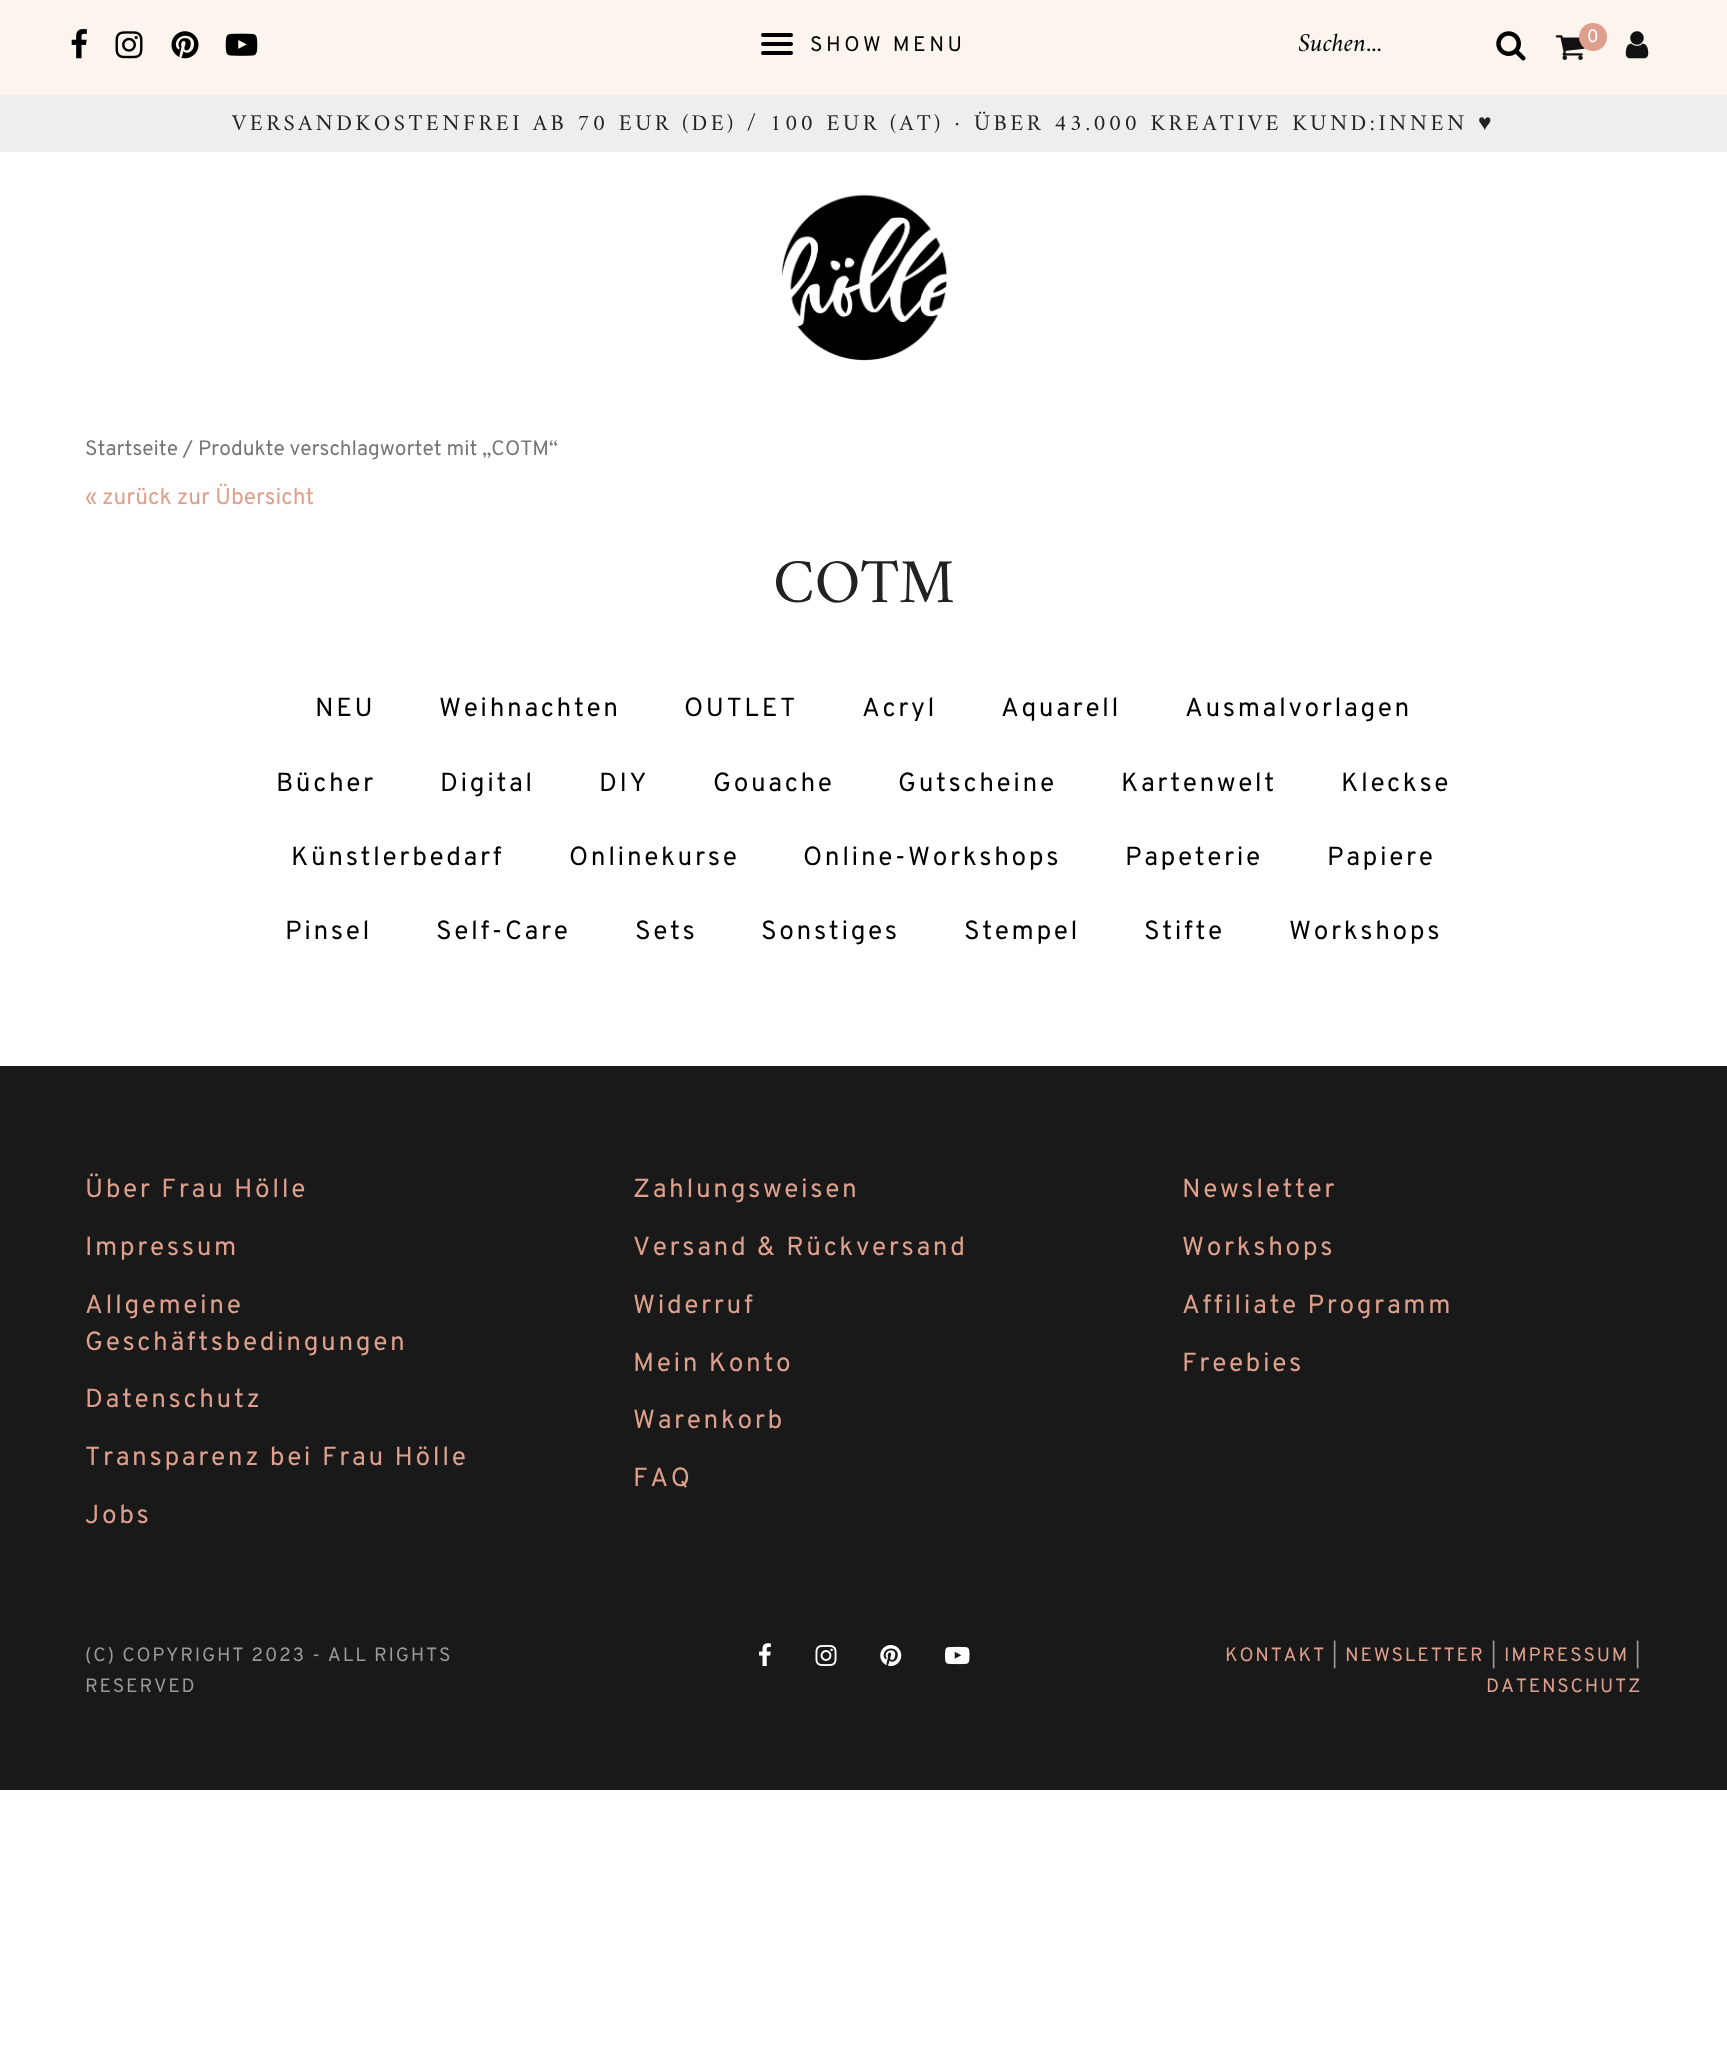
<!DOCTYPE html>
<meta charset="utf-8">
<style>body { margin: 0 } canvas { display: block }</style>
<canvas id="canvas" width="1727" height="2066"></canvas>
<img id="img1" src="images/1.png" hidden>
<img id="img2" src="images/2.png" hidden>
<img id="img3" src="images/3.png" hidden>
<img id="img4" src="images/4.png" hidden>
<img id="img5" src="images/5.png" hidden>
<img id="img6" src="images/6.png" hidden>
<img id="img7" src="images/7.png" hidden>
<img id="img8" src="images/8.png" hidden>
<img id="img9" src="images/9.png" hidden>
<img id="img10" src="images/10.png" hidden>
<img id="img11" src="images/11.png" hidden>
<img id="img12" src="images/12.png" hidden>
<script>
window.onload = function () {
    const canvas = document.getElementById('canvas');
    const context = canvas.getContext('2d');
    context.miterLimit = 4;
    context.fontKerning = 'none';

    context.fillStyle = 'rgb(255, 255, 255)';
    context.fillRect(0, 0, 1727, 2066);
    context.fillStyle = 'rgb(251, 245, 237)';
    context.fillRect(0, 0, 1727, 95);
    context.drawImage(document.getElementById('img1'), 71, 29, 16, 30);
    context.drawImage(document.getElementById('img2'), 115, 31, 28, 28);
    context.drawImage(document.getElementById('img3'), 171, 31, 28, 28);
    context.drawImage(document.getElementById('img4'), 225, 33, 33, 23);
    context.fillStyle = 'rgb(0, 0, 0)';
    context.beginPath();
    context.roundRect(761, 33, 32, 4, 2);
    context.fill();
    context.beginPath();
    context.roundRect(761, 42, 32, 4, 2);
    context.fill();
    context.beginPath();
    context.roundRect(761, 51, 32, 4, 2);
    context.fill();
    context.drawImage(document.getElementById('img5'), 1496, 31, 30, 30);
    context.drawImage(document.getElementById('img6'), 1555, 35, 30, 25);
    context.fillStyle = 'rgb(222, 160, 140)';
    context.beginPath();
    context.arc(1593, 37, 14, 0, 2 * Math.PI);
    context.fill();
    context.drawImage(document.getElementById('img7'), 1625, 31, 24, 28);
    context.fillStyle = 'rgb(238, 238, 238)';
    context.fillRect(0, 95, 1727, 57);
    context.drawImage(document.getElementById('img8'), 781, 194, 167, 167);
    context.fillStyle = 'rgb(25, 25, 25)';
    context.fillRect(0, 1066, 1727, 724);
    context.drawImage(document.getElementById('img9'), 759, 1643, 12, 23);
    context.drawImage(document.getElementById('img10'), 815, 1645, 22, 21);
    context.drawImage(document.getElementById('img11'), 880, 1645, 22, 21);
    context.drawImage(document.getElementById('img12'), 945, 1646, 25, 19);
    context.letterSpacing = '3.5px';
    context.font = '21px Overpass';
    context.fillStyle = 'rgb(0, 0, 0)';
    context.fillText('SHOW MENU', 810, 51);
    context.save();
    context.beginPath();
    context.rect(1299, 21, 175, 47);
    context.clip();
    context.letterSpacing = '0px';
    context.font = 'italic 26.25px Amiri';
    context.fillText('Suchen...', 1298, 51);
    context.restore();
    context.letterSpacing = '0px';
    context.font = '18px Overpass';
    context.fillStyle = 'rgb(255, 255, 255)';
    context.fillText('0', 1587, 42);
    context.letterSpacing = '3.5px';
    context.font = '22.75px Amiri';
    context.fillStyle = 'rgb(34, 34, 34)';
    context.fillText('VERSANDKOSTENFREI AB 70 EUR (DE) / 100 EUR (AT) · ÜBER 43.000 KREATIVE KUND:INNEN', 232, 130);
    context.font = '22.75px Liberation Serif';
    context.fillText('♥', 1478, 130);
    context.letterSpacing = '0px';
    context.font = '20.9px Overpass';
    context.fillStyle = 'rgb(118, 118, 118)';
    context.fillText('Startseite / Produkte verschlagwortet mit „COTM“', 85, 455);
    context.font = '22.75px Overpass';
    context.fillStyle = 'rgb(222, 160, 140)';
    context.fillText('« zurück zur Übersicht', 85, 504);
    context.font = '63px Amiri';
    context.fillStyle = 'rgb(34, 34, 34)';
    context.fillText('COTM', 773, 602);
    context.letterSpacing = '2.6px';
    context.font = '26.25px Overpass';
    context.fillStyle = 'rgb(0, 0, 0)';
    context.fillText('NEU', 315, 716);
    context.fillText('Weihnachten', 439, 716);
    context.fillText('OUTLET', 684, 716);
    context.fillText('Acryl', 862, 716);
    context.fillText('Aquarell', 1001, 716);
    context.fillText('Ausmalvorlagen', 1185, 716);
    context.fillText('Bücher', 276, 791);
    context.fillText('Digital', 440, 791);
    context.fillText('DIY', 599, 791);
    context.fillText('Gouache', 713, 791);
    context.fillText('Gutscheine', 898, 791);
    context.fillText('Kartenwelt', 1121, 791);
    context.fillText('Kleckse', 1341, 791);
    context.fillText('Künstlerbedarf', 291, 865);
    context.fillText('Onlinekurse', 569, 865);
    context.fillText('Online-Workshops', 803, 865);
    context.fillText('Papeterie', 1125, 865);
    context.fillText('Papiere', 1327, 865);
    context.fillText('Pinsel', 285, 939);
    context.fillText('Self-Care', 436, 939);
    context.fillText('Sets', 635, 939);
    context.fillText('Sonstiges', 761, 939);
    context.fillText('Stempel', 964, 939);
    context.fillText('Stifte', 1144, 939);
    context.fillText('Workshops', 1289, 939);
    context.fillStyle = 'rgb(222, 160, 140)';
    context.fillText('Über Frau Hölle', 85, 1197);
    context.fillText('Impressum', 85, 1255);
    context.fillText('Allgemeine', 85, 1313);
    context.fillText('Geschäftsbedingungen', 85, 1350);
    context.fillText('Datenschutz', 85, 1407);
    context.fillText('Transparenz bei Frau Hölle', 85, 1465);
    context.fillText('Jobs', 85, 1523);
    context.fillText('Zahlungsweisen', 633, 1197);
    context.fillText('Versand & Rückversand', 633, 1255);
    context.fillText('Widerruf', 633, 1313);
    context.fillText('Mein Konto', 633, 1371);
    context.fillText('Warenkorb', 633, 1428);
    context.fillText('FAQ', 633, 1486);
    context.fillText('Newsletter', 1182, 1197);
    context.fillText('Workshops', 1182, 1255);
    context.fillText('Affiliate Programm', 1182, 1313);
    context.fillText('Freebies', 1182, 1371);
    context.letterSpacing = '1.75px';
    context.font = '19.25px Overpass';
    context.fillStyle = 'rgb(153, 153, 153)';
    context.fillText('(C) COPYRIGHT 2023 - ALL RIGHTS', 85, 1661);
    context.fillText('RESERVED', 85, 1692);
    context.fillStyle = 'rgb(222, 160, 140)';
    context.fillText('KONTAKT', 1225, 1661);
    context.fillStyle = 'rgb(153, 153, 153)';
    context.fillText('|', 1332, 1661);
    context.fillStyle = 'rgb(222, 160, 140)';
    context.fillText('NEWSLETTER', 1345, 1661);
    context.fillStyle = 'rgb(153, 153, 153)';
    context.fillText('|', 1491, 1661);
    context.fillStyle = 'rgb(222, 160, 140)';
    context.fillText('IMPRESSUM', 1504, 1661);
    context.fillStyle = 'rgb(153, 153, 153)';
    context.fillText('|', 1635, 1661);
    context.fillStyle = 'rgb(222, 160, 140)';
    context.fillText('DATENSCHUTZ', 1486, 1692);
};
</script>
